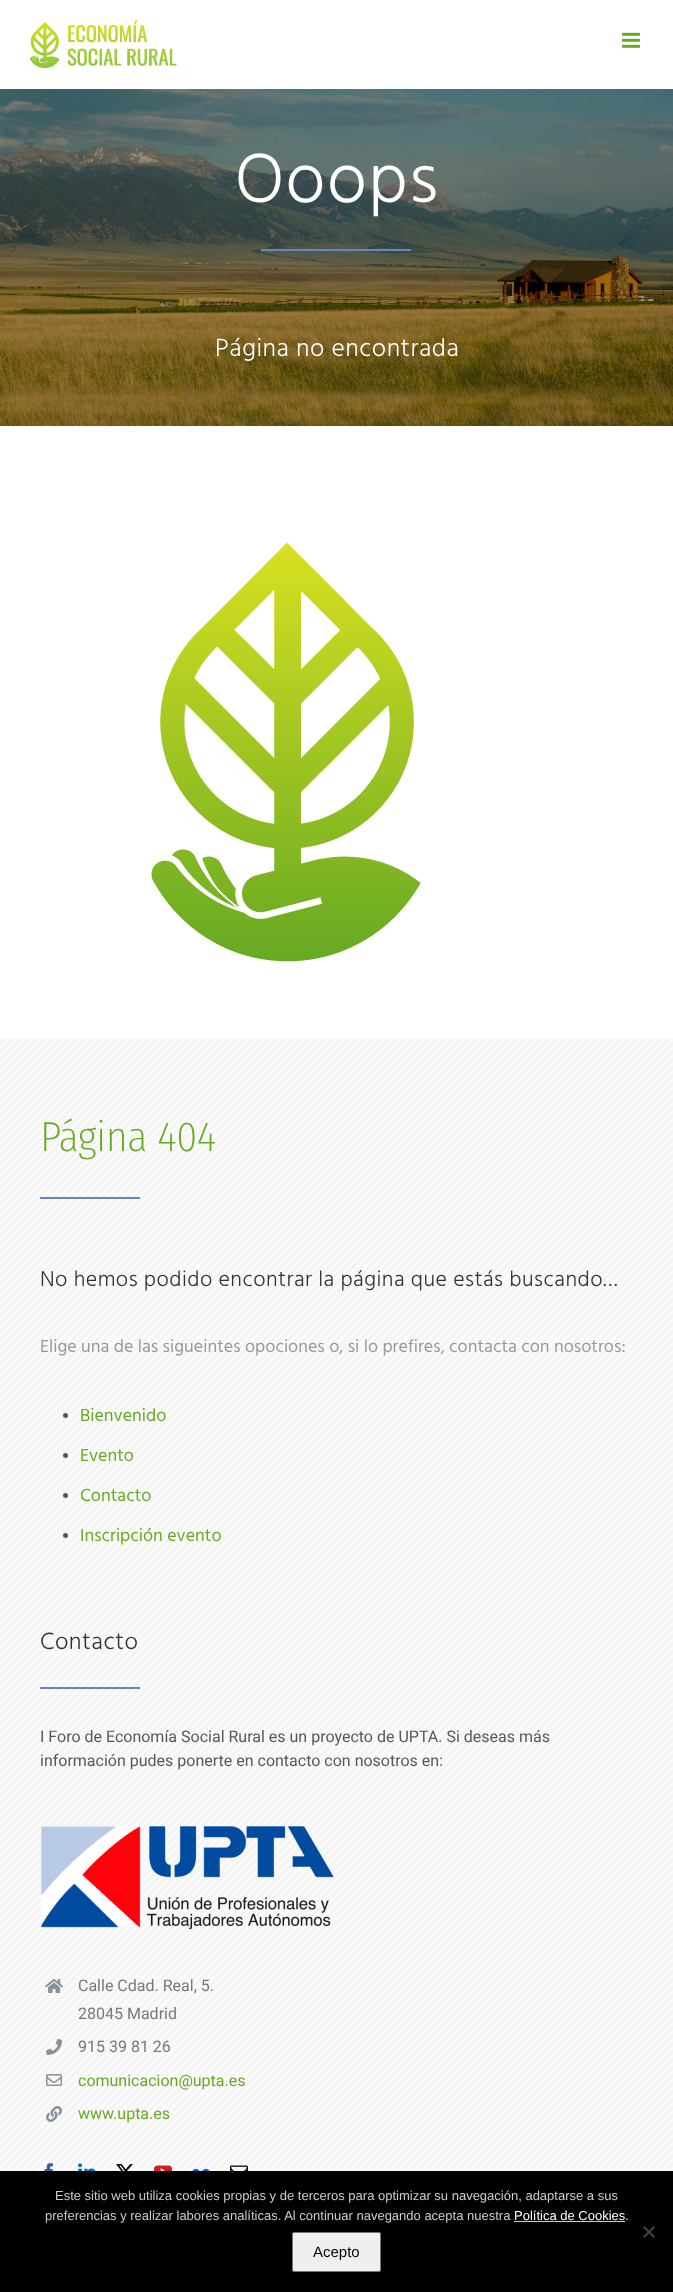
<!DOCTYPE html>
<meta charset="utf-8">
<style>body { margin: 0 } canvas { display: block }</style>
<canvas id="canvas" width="673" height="2292"></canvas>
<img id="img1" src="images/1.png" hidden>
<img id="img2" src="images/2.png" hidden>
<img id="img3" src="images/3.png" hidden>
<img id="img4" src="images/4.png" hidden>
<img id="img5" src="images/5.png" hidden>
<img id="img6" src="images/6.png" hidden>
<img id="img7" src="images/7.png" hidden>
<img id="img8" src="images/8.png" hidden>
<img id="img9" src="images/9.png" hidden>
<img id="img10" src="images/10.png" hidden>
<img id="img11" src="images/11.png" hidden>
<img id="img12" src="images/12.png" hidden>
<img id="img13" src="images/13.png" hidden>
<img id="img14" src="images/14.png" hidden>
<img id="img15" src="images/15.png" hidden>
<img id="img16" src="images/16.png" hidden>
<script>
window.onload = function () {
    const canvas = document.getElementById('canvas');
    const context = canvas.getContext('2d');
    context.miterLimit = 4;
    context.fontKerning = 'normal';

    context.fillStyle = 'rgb(255, 255, 255)';
    context.fillRect(0, 0, 673, 2292);
    context.drawImage(document.getElementById('img1'), 30, 20, 147, 48);
    context.drawImage(document.getElementById('img2'), 622, 32, 18, 16);
    context.drawImage(document.getElementById('img3'), 0, 89, 673, 337);
    context.fillStyle = 'rgb(101, 137, 192)';
    context.fillRect(261, 249, 150, 2);
    context.drawImage(document.getElementById('img4'), 151, 542, 270, 420);
    context.drawImage(document.getElementById('img5'), 0, 1038, 673, 1133);
    context.fillStyle = 'rgb(100, 135, 194)';
    context.fillRect(40, 1197, 100, 2);
    context.fillStyle = 'rgb(86, 88, 90)';
    context.beginPath();
    context.arc(65.5, 1415.5, 2.5, 0, 2 * Math.PI);
    context.fill();
    context.beginPath();
    context.arc(65.5, 1455.5, 2.5, 0, 2 * Math.PI);
    context.fill();
    context.beginPath();
    context.arc(65.5, 1495.5, 2.5, 0, 2 * Math.PI);
    context.fill();
    context.beginPath();
    context.arc(65.5, 1535.5, 2.5, 0, 2 * Math.PI);
    context.fill();
    context.fillStyle = 'rgb(100, 135, 194)';
    context.fillRect(40, 1687, 100, 2);
    context.drawImage(document.getElementById('img6'), 41, 1826, 293, 104);
    context.drawImage(document.getElementById('img7'), 45, 1979, 18, 14);
    context.drawImage(document.getElementById('img8'), 46, 2039, 16, 16);
    context.drawImage(document.getElementById('img9'), 46, 2074, 16, 12);
    context.drawImage(document.getElementById('img10'), 46, 2106, 16, 16);
    context.drawImage(document.getElementById('img11'), 44, 2163, 9, 8);
    context.drawImage(document.getElementById('img12'), 78, 2163, 18, 8);
    context.drawImage(document.getElementById('img13'), 116, 2164, 17, 7);
    context.drawImage(document.getElementById('img14'), 154, 2165, 18, 6);
    context.drawImage(document.getElementById('img15'), 192, 2168, 18, 3);
    context.drawImage(document.getElementById('img16'), 230, 2165, 18, 6);
    context.fillStyle = 'rgb(0, 0, 0)';
    context.fillRect(0, 2171, 673, 121);
    context.fillStyle = 'rgb(204, 204, 204)';
    context.fillRect(514, 2221, 111, 1);
    context.fillStyle = 'rgb(64, 64, 64)';
    context.beginPath();
    context.moveTo(653.5, 2226);
    context.lineTo(655, 2227.5);
    context.lineTo(644.5, 2238);
    context.lineTo(643, 2236.5);
    context.closePath();
    context.fill();
    context.beginPath();
    context.moveTo(643, 2227.5);
    context.lineTo(644.5, 2226);
    context.lineTo(655, 2236.5);
    context.lineTo(653.5, 2238);
    context.closePath();
    context.fill();
    context.fillStyle = 'rgb(239, 239, 239)';
    context.beginPath();
    context.roundRect(292.5, 2232.5, 88, 39, 1.5);
    context.fill();
    context.strokeStyle = 'rgb(118, 118, 118)';
    context.stroke();
    context.letterSpacing = '1.5px';
    context.font = '300 71px Hind Vadodara';
    context.fillStyle = 'rgb(255, 255, 255)';
    context.fillText('Ooops', 235, 202);
    context.letterSpacing = '0.5px';
    context.font = '300 25.5px Hind Vadodara';
    context.fillText('Página no encontrada', 215, 356);
    context.letterSpacing = '-0.5px';
    context.font = '200 42px Fira Sans Condensed';
    context.fillStyle = 'rgb(102, 169, 35)';
    context.fillText('Página 404', 40, 1151);
    context.letterSpacing = '0.45px';
    context.font = '300 22px Hind Vadodara';
    context.fillStyle = 'rgb(51, 51, 51)';
    context.fillText('No hemos podido encontrar la página que estás buscando…', 40, 1286);
    context.letterSpacing = '0px';
    context.font = '18px Hind Vadodara';
    context.fillStyle = 'rgb(153, 153, 153)';
    context.fillText('Elige una de las sigueintes opociones o, si lo prefires, contacta con nosotros:', 40, 1352);
    context.fillStyle = 'rgb(102, 169, 35)';
    context.fillText('Bienvenido', 80, 1421);
    context.fillText('Evento', 80, 1461);
    context.fillText('Contacto', 80, 1501);
    context.fillText('Inscripción evento', 80, 1541);
    context.letterSpacing = '0.5px';
    context.font = '300 24px Hind Vadodara';
    context.fillStyle = 'rgb(51, 51, 51)';
    context.fillText('Contacto', 40, 1649);
    context.letterSpacing = '0px';
    context.font = '16px Roboto';
    context.fillStyle = 'rgb(86, 88, 90)';
    context.fillText('I Foro de Economía Social Rural es un proyecto de UPTA. Si deseas más', 40, 1742);
    context.fillText('información pudes ponerte en contacto con nosotros en:', 40, 1766);
    context.fillStyle = 'rgb(119, 119, 119)';
    context.fillText('Calle Cdad. Real, 5.', 78, 1991);
    context.fillText('28045 Madrid', 78, 2019);
    context.fillText('915 39 81 26', 78, 2052);
    context.fillStyle = 'rgb(102, 169, 35)';
    context.fillText('comunicacion@upta.es', 78, 2086);
    context.fillText('www.upta.es', 78, 2119);
    context.font = '13px Liberation Sans';
    context.fillStyle = 'rgb(204, 204, 204)';
    context.fillText('Este sitio web utiliza cookies propias y de terceros para optimizar su navegación, adaptarse a sus', 55, 2200);
    context.fillText('preferencias y realizar labores analíticas. Al continuar navegando acepta nuestra', 45, 2220);
    context.fillStyle = 'rgb(255, 255, 255)';
    context.fillText('Política de Cookies', 514, 2220);
    context.fillStyle = 'rgb(204, 204, 204)';
    context.fillText('.', 625, 2220);
    context.font = '15px Liberation Sans';
    context.fillStyle = 'rgb(0, 0, 0)';
    context.fillText('Acepto', 313, 2257);
};
</script>
